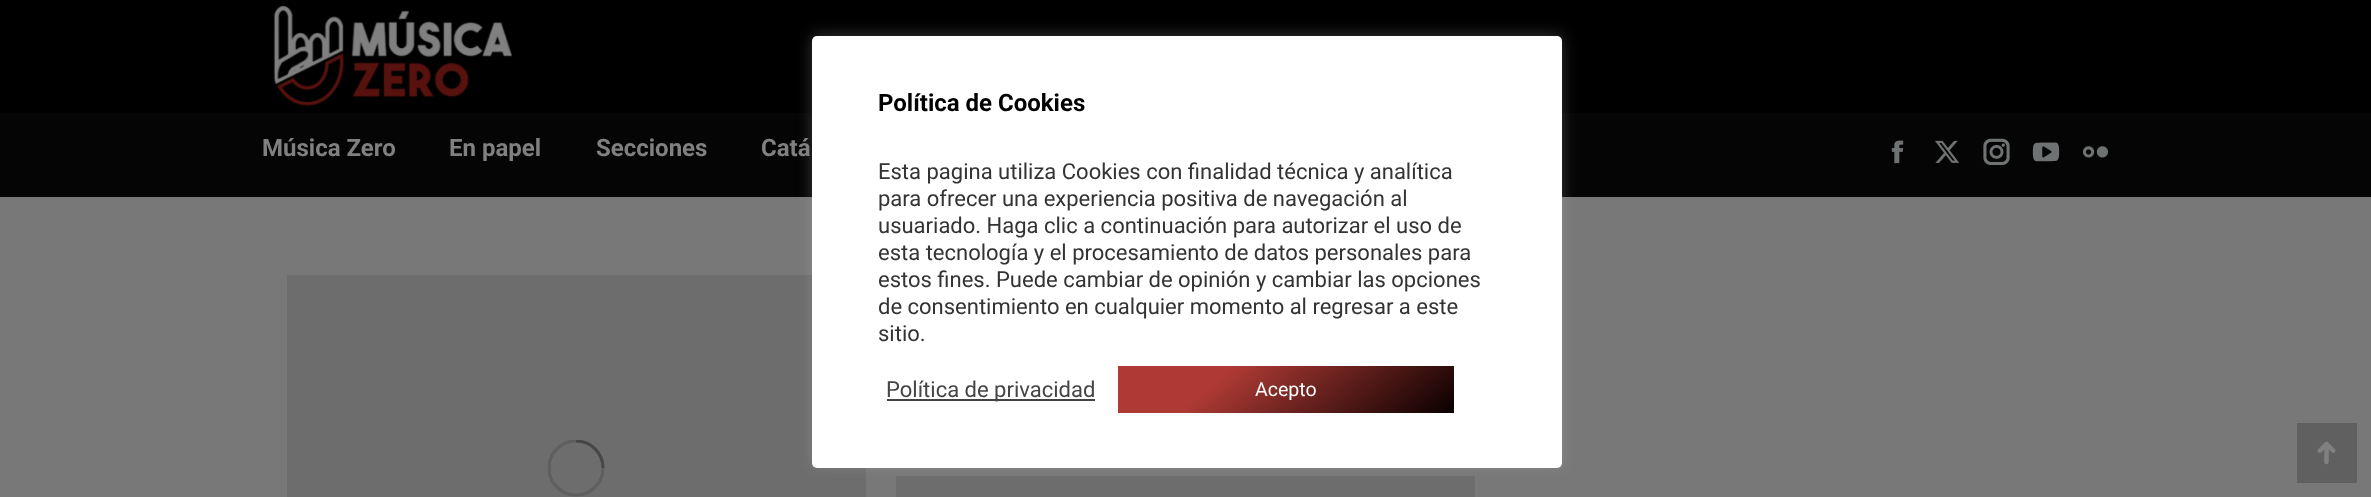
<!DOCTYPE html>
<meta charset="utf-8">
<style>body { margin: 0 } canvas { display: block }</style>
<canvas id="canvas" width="2371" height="497"></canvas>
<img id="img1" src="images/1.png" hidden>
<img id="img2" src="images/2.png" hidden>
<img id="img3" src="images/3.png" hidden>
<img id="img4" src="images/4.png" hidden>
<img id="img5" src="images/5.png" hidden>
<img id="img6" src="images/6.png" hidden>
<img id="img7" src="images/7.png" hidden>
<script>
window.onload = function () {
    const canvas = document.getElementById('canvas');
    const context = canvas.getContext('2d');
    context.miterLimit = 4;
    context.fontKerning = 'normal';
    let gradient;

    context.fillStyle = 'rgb(120, 120, 120)';
    context.fillRect(0, 0, 2371, 497);
    context.fillStyle = 'rgb(0, 0, 0)';
    context.fillRect(0, 0, 2371, 113);
    context.drawImage(document.getElementById('img1'), 273, 5, 240, 102);
    context.fillStyle = 'rgb(5, 5, 5)';
    context.fillRect(0, 113, 2371, 84);
    context.drawImage(document.getElementById('img2'), 1891, 140, 13, 24);
    context.drawImage(document.getElementById('img3'), 1935, 140, 25, 23);
    context.drawImage(document.getElementById('img4'), 1983, 138, 27, 27);
    context.drawImage(document.getElementById('img5'), 2032, 142, 28, 20);
    context.drawImage(document.getElementById('img6'), 2082, 146, 27, 12);
    context.fillStyle = 'rgb(109, 109, 109)';
    context.fillRect(287, 275, 579, 222);
    context.save();
    context.beginPath();
    context.rect(548, 440, 57, 57);
    context.clip();
    context.beginPath();
    context.arc(576, 468, 27, 0, 2 * Math.PI);
    context.strokeStyle = 'rgb(94, 94, 94)';
    context.lineWidth = 3;
    context.stroke();
    context.beginPath();
    context.moveTo(603, 468);
    context.bezierCurveTo(603, 453, 591, 441, 576, 441);
    context.strokeStyle = 'rgba(0, 0, 0, 0.25)';
    context.stroke();
    context.restore();
    context.fillRect(896, 476, 579, 21);
    context.fillStyle = 'rgb(96, 96, 96)';
    context.fillRect(2297, 423, 60, 60);
    context.drawImage(document.getElementById('img7'), 2317, 441, 19, 24);
    context.fillStyle = 'rgba(172, 171, 171, 0.3)';
    context.filter = 'blur(7.5px)';
    context.beginPath();
    context.roundRect(812, 35, 750, 432, 5);
    context.fill();
    context.filter = 'none';
    context.fillStyle = 'rgb(255, 255, 255)';
    context.beginPath();
    context.roundRect(812, 36, 750, 432, 5);
    context.fill();
    context.fillStyle = 'rgb(68, 68, 68)';
    context.fillRect(887, 399, 208, 2);
    gradient = context.createLinearGradient(1208, 293, 1363, 485);
    gradient.addColorStop(0.3, 'rgb(175, 58, 52)');
    gradient.addColorStop(1, 'rgb(10, 0, 0)');
    context.fillStyle = gradient;
    context.fillRect(1118, 366, 336, 47);
    context.font = 'bold 24px Roboto';
    context.fillStyle = 'rgb(128, 128, 128)';
    context.fillText('Música Zero', 262, 156);
    context.fillText('En papel', 449, 156);
    context.fillText('Secciones', 596, 156);
    context.fillText('Catá', 761, 156);
    context.fillStyle = 'rgb(0, 0, 0)';
    context.fillText('Política de Cookies', 878, 111);
    context.font = '22px Roboto';
    context.fillStyle = 'rgb(51, 51, 51)';
    context.fillText('Esta pagina utiliza Cookies con finalidad técnica y analítica', 878, 179);
    context.fillText('para ofrecer una experiencia positiva de navegación al', 878, 206);
    context.fillText('usuariado. Haga clic a continuación para autorizar el uso de', 878, 233);
    context.fillText('esta tecnología y el procesamiento de datos personales para', 878, 260);
    context.fillText('estos fines. Puede cambiar de opinión y cambiar las opciones', 878, 287);
    context.fillText('de consentimiento en cualquier momento al regresar a este', 878, 314);
    context.fillText('sitio.', 878, 341);
    context.fillStyle = 'rgb(68, 68, 68)';
    context.fillText('Política de privacidad', 886, 397);
    context.font = '19.5px Roboto';
    context.fillStyle = 'rgb(255, 255, 255)';
    context.fillText('Acepto', 1255, 396);
};
</script>
